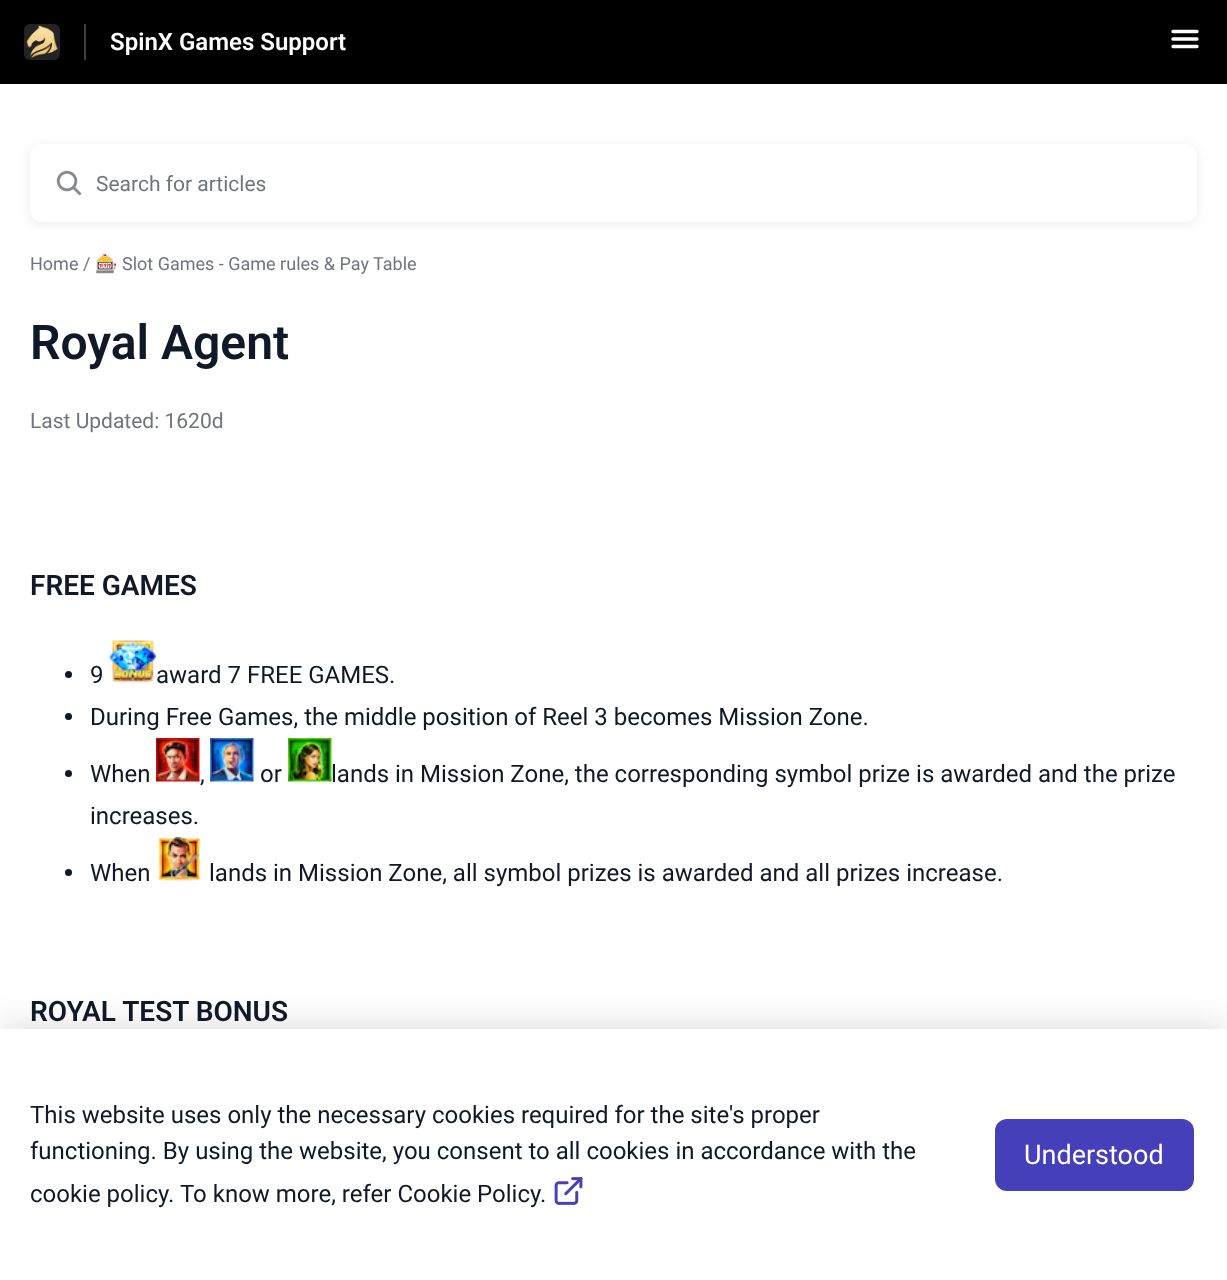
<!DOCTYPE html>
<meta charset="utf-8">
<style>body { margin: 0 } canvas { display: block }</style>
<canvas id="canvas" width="1227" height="1280"></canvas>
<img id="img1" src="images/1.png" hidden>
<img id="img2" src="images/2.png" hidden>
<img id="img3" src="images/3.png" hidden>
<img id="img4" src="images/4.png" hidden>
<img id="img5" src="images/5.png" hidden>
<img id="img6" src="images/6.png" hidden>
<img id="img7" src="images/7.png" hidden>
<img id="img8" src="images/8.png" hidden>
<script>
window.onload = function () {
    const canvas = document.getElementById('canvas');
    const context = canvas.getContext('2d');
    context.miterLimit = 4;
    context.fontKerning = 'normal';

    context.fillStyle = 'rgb(255, 255, 255)';
    context.fillRect(0, 0, 1227, 1280);
    context.fillStyle = 'rgb(0, 0, 0)';
    context.fillRect(0, 0, 1227, 84);
    context.fillStyle = 'rgb(64, 64, 64)';
    context.fillRect(84, 24, 2, 36);
    context.drawImage(document.getElementById('img1'), 24, 24, 36, 36);
    context.beginPath();
    context.moveTo(1173, 31.5);
    context.lineTo(1197, 31.5);
    context.moveTo(1173, 39);
    context.lineTo(1197, 39);
    context.moveTo(1173, 46.5);
    context.lineTo(1197, 46.5);
    context.strokeStyle = 'rgb(255, 255, 255)';
    context.lineWidth = 3.4;
    context.lineCap = 'round';
    context.stroke();
    context.fillStyle = 'rgba(0, 0, 0, 0.08)';
    context.filter = 'blur(6px)';
    context.beginPath();
    context.roundRect(30, 146, 1167, 78, 12);
    context.fill();
    context.filter = 'none';
    context.fillStyle = 'rgb(255, 255, 255)';
    context.beginPath();
    context.roundRect(30, 144, 1167, 78, 12);
    context.fill();
    context.drawImage(document.getElementById('img2'), 56, 170, 26, 26);
    context.fillStyle = 'rgb(17, 24, 39)';
    context.beginPath();
    context.arc(68.5, 674.5, 3.5, 0, 2 * Math.PI);
    context.fill();
    context.drawImage(document.getElementById('img3'), 109, 640, 47, 43);
    context.beginPath();
    context.arc(68.5, 716.5, 3.5, 0, 2 * Math.PI);
    context.fill();
    context.beginPath();
    context.arc(68.5, 773.5, 3.5, 0, 2 * Math.PI);
    context.fill();
    context.drawImage(document.getElementById('img4'), 156, 738, 44, 44);
    context.drawImage(document.getElementById('img5'), 210, 738, 44, 44);
    context.drawImage(document.getElementById('img6'), 288, 738, 44, 44);
    context.beginPath();
    context.arc(68.5, 872.5, 3.5, 0, 2 * Math.PI);
    context.fill();
    context.drawImage(document.getElementById('img7'), 158, 837, 42, 44);
    context.fillStyle = 'rgba(0, 0, 0, 0.16)';
    context.filter = 'blur(18px)';
    context.beginPath();
    context.rect(0, 1029, 1227, 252);
    context.fill();
    context.filter = 'none';
    context.fillStyle = 'rgb(255, 255, 255)';
    context.fillRect(0, 1029, 1227, 251);
    context.drawImage(document.getElementById('img8'), 554, 1177, 29, 28);
    context.fillStyle = 'rgb(69, 63, 185)';
    context.beginPath();
    context.roundRect(995, 1119, 199, 72, 12);
    context.fill();
    context.font = '600 24px Roboto';
    context.fillStyle = 'rgb(255, 255, 255)';
    context.fillText('SpinX Games Support', 110, 50);
    context.font = '21px Roboto';
    context.fillStyle = 'rgb(112, 116, 125)';
    context.fillText('Search for articles', 96, 191);
    context.font = '18px Roboto';
    context.fillText('Home /', 30, 270);
    context.font = '18px Noto Color Emoji';
    context.fillText('🎰', 95, 270);
    context.font = '18px Roboto';
    context.fillText('Slot Games - Game rules & Pay Table', 122, 270);
    context.font = '600 48px Roboto';
    context.fillStyle = 'rgb(17, 24, 39)';
    context.fillText('Royal Agent', 30, 359);
    context.font = '21px Roboto';
    context.fillStyle = 'rgb(112, 116, 125)';
    context.fillText('Last Updated: 1620d', 30, 428);
    context.font = '600 28px Roboto';
    context.fillStyle = 'rgb(17, 24, 39)';
    context.fillText('FREE GAMES', 30, 595);
    context.font = '24px Roboto';
    context.fillText('9', 90, 683);
    context.fillText('award 7 FREE GAMES.', 156, 683);
    context.fillText('During Free Games, the middle position of Reel 3 becomes Mission Zone.', 90, 725);
    context.fillText('When', 90, 782);
    context.fillText(',', 200, 782);
    context.fillText('or', 260, 782);
    context.fillText('lands in Mission Zone, the corresponding symbol prize is awarded and the prize', 331, 782);
    context.fillText('increases.', 90, 824);
    context.fillText('When', 90, 881);
    context.fillText('lands in Mission Zone, all symbol prizes is awarded and all prizes increase.', 209, 881);
    context.font = '600 28px Roboto';
    context.fillText('ROYAL TEST BONUS', 30, 1021);
    context.font = '24px Roboto';
    context.fillText('This website uses only the necessary cookies required for the site\'s proper', 30, 1123);
    context.fillText('functioning. By using the website, you consent to all cookies in accordance with the', 30, 1159);
    context.fillText('cookie policy. To know more, refer Cookie Policy.', 30, 1202);
    context.font = '27px Roboto';
    context.fillStyle = 'rgb(255, 255, 255)';
    context.fillText('Understood', 1024, 1164);
};
</script>
